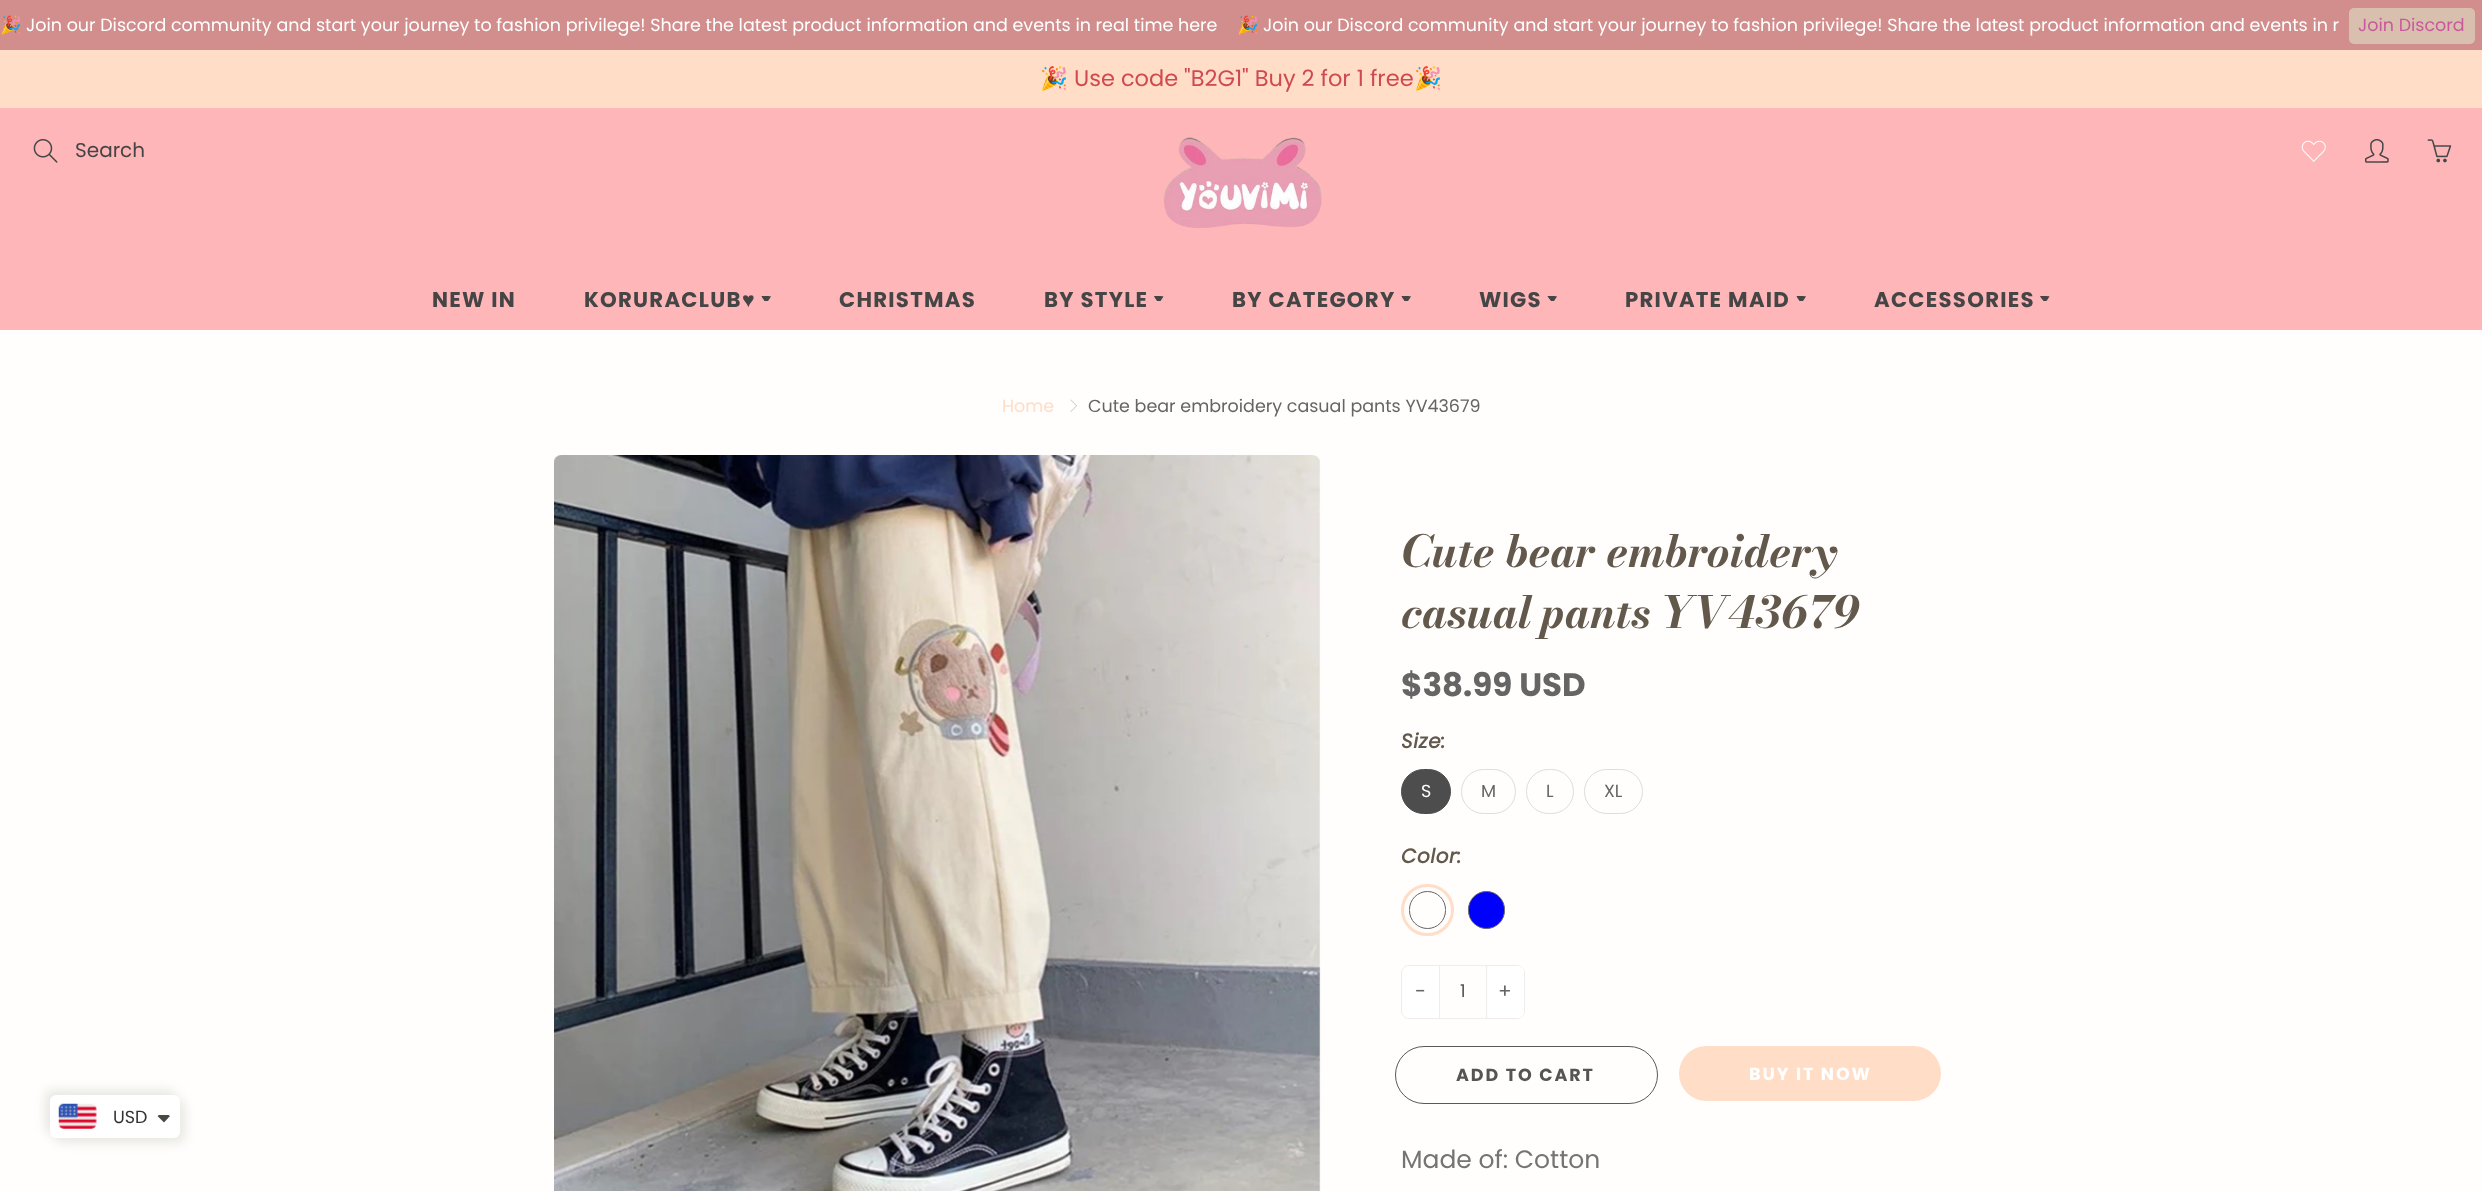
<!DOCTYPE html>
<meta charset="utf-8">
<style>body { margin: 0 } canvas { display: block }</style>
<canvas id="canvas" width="2482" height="1191"></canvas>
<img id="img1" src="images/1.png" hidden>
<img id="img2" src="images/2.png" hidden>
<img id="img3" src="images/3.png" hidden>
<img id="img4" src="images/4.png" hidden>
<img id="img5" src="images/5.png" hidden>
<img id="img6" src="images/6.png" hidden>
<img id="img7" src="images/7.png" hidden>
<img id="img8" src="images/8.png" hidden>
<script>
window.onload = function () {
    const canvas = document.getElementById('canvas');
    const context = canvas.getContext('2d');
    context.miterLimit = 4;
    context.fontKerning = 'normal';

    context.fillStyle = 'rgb(255, 254, 253)';
    context.fillRect(0, 0, 2482, 1191);
    context.fillStyle = 'rgb(210, 141, 141)';
    context.fillRect(0, 0, 2482, 50);
    context.fillStyle = 'rgb(217, 192, 174)';
    context.beginPath();
    context.roundRect(2349, 8, 126, 36, 5);
    context.fill();
    context.fillStyle = 'rgb(255, 221, 198)';
    context.fillRect(0, 50, 2482, 58);
    context.fillStyle = 'rgb(255, 182, 185)';
    context.fillRect(0, 108, 2482, 222);
    context.drawImage(document.getElementById('img1'), 33, 139, 25, 24);
    context.drawImage(document.getElementById('img2'), 1163, 137, 159, 91);
    context.drawImage(document.getElementById('img3'), 2301, 140, 25, 22);
    context.drawImage(document.getElementById('img4'), 2365, 139, 24, 24);
    context.drawImage(document.getElementById('img5'), 2427, 139, 25, 24);
    context.fillStyle = 'rgb(69, 69, 69)';
    context.beginPath();
    context.moveTo(761.5, 296.5);
    context.lineTo(762, 296);
    context.bezierCurveTo(763, 296, 770.5, 295.5, 771, 296.5);
    context.lineTo(768, 301);
    context.lineTo(764.5, 301);
    context.closePath();
    context.fill();
    context.beginPath();
    context.moveTo(1154, 296.5);
    context.lineTo(1154.5, 296);
    context.bezierCurveTo(1156, 296, 1162.5, 295.5, 1163.5, 296.5);
    context.lineTo(1160.5, 301);
    context.lineTo(1157, 301);
    context.closePath();
    context.fill();
    context.beginPath();
    context.moveTo(1401.5, 296.5);
    context.lineTo(1402, 296);
    context.bezierCurveTo(1403, 296, 1410.5, 295.5, 1411, 296.5);
    context.lineTo(1408, 301);
    context.lineTo(1404.5, 301);
    context.closePath();
    context.fill();
    context.beginPath();
    context.moveTo(1547.5, 296.5);
    context.lineTo(1548, 296);
    context.bezierCurveTo(1549.5, 296, 1556.5, 296, 1557, 296.5);
    context.lineTo(1554, 301);
    context.lineTo(1551, 301);
    context.closePath();
    context.fill();
    context.beginPath();
    context.moveTo(1796.5, 296.5);
    context.lineTo(1797, 296);
    context.bezierCurveTo(1798, 296, 1805.5, 295.5, 1806, 296.5);
    context.lineTo(1803, 301);
    context.lineTo(1799.5, 301);
    context.closePath();
    context.fill();
    context.beginPath();
    context.moveTo(2040, 296.5);
    context.lineTo(2040.5, 296);
    context.bezierCurveTo(2042, 296, 2049, 296, 2049.5, 296.5);
    context.lineTo(2046.5, 301);
    context.lineTo(2043.5, 301);
    context.closePath();
    context.fill();
    context.drawImage(document.getElementById('img6'), 1070, 399, 7, 13);
    context.drawImage(document.getElementById('img7'), 554, 455, 767, 736);
    context.fillStyle = 'rgb(77, 77, 77)';
    context.beginPath();
    context.roundRect(1401.5, 769.5, 49, 44, 22);
    context.fill();
    context.strokeStyle = 'rgb(77, 77, 77)';
    context.stroke();
    context.beginPath();
    context.roundRect(1461.5, 769.5, 54, 44, 22);
    context.strokeStyle = 'rgb(221, 221, 221)';
    context.stroke();
    context.beginPath();
    context.roundRect(1526.5, 769.5, 47, 44, 22);
    context.stroke();
    context.beginPath();
    context.roundRect(1584.5, 769.5, 58, 44, 22);
    context.stroke();
    context.beginPath();
    context.roundRect(1402.5, 885.5, 50, 49, 24.5);
    context.strokeStyle = 'rgb(255, 221, 198)';
    context.lineWidth = 3;
    context.stroke();
    context.beginPath();
    context.roundRect(1409.5, 891.5, 36, 37, 18);
    context.strokeStyle = 'rgb(102, 101, 101)';
    context.lineWidth = 1;
    context.stroke();
    context.fillStyle = 'rgb(0, 0, 255)';
    context.beginPath();
    context.roundRect(1468.5, 891.5, 36, 37, 18);
    context.fill();
    context.stroke();
    context.beginPath();
    context.roundRect(1401.5, 965.5, 123, 53, 7.5);
    context.strokeStyle = 'rgb(237, 237, 237)';
    context.stroke();
    context.fillStyle = 'rgb(255, 255, 255)';
    context.beginPath();
    context.roundRect(1403, 966, 36, 52, [6, 0, 0, 6]);
    context.fill();
    context.fillStyle = 'rgb(237, 237, 237)';
    context.fillRect(1486, 966, 1, 52);
    context.fillRect(1439, 966, 1, 52);
    context.fillStyle = 'rgb(255, 255, 255)';
    context.beginPath();
    context.roundRect(1488, 966, 36, 52, [0, 6, 6, 0]);
    context.fill();
    context.beginPath();
    context.roundRect(1395.5, 1046.5, 262, 57, 28.5);
    context.strokeStyle = 'rgb(89, 89, 89)';
    context.stroke();
    context.fillStyle = 'rgb(255, 221, 198)';
    context.beginPath();
    context.roundRect(1679, 1046, 262, 55, 27.5);
    context.fill();
    context.fillStyle = 'rgb(232, 232, 226)';
    context.filter = 'blur(5.5px)';
    context.beginPath();
    context.roundRect(45, 1090, 130, 43, 6);
    context.fill();
    context.filter = 'none';
    context.filter = 'blur(5.5px)';
    context.beginPath();
    context.roundRect(55, 1100, 130, 43, 6);
    context.fill();
    context.filter = 'none';
    context.fillStyle = 'rgb(255, 255, 255)';
    context.beginPath();
    context.roundRect(50, 1095, 130, 43, 6);
    context.fill();
    context.drawImage(document.getElementById('img8'), 58, 1103, 39, 26);
    context.fillStyle = 'rgb(71, 73, 66)';
    context.beginPath();
    context.moveTo(160, 1115);
    context.bezierCurveTo(159, 1115, 158, 1115.5, 157.5, 1116);
    context.lineTo(164, 1122.5);
    context.lineTo(170, 1116);
    context.bezierCurveTo(169.5, 1115.5, 168.5, 1115, 167.5, 1115);
    context.closePath();
    context.fill();
    context.font = '17.5px Noto Color Emoji';
    context.fillStyle = 'rgb(255, 255, 255)';
    context.fillText('🎉', 0, 31);
    context.font = '17.5px Poppins';
    context.fillText('Join our Discord community and start your journey to fashion privilege! Share the latest product information and events in real time here', 26, 31);
    context.font = '17.5px Noto Color Emoji';
    context.fillText('🎉', 1237, 31);
    context.font = '17.5px Poppins';
    context.fillText('Join our Discord community and start your journey to fashion privilege! Share the latest product information and events in r', 1263, 31);
    context.fillStyle = 'rgb(201, 89, 156)';
    context.fillText('Join Discord', 2358, 31);
    context.font = '22.5px Noto Color Emoji';
    context.fillStyle = 'rgb(207, 73, 80)';
    context.fillText('🎉', 1040, 86);
    context.font = '22.5px Poppins';
    context.fillText('Use code "B2G1" Buy 2 for 1 free', 1074, 86);
    context.font = '22.5px Noto Color Emoji';
    context.fillText('🎉', 1414, 86);
    context.font = '20px Poppins';
    context.fillStyle = 'rgb(69, 69, 69)';
    context.fillText('Search', 75, 157);
    context.letterSpacing = '1.25px';
    context.font = 'bold 21.25px Poppins';
    context.fillText('NEW IN', 432, 307);
    context.fillText('KORURACLUB', 584, 307);
    context.font = 'bold 21.25px Liberation Sans';
    context.fillText('♥', 742, 307);
    context.font = 'bold 21.25px Poppins';
    context.fillText('CHRISTMAS', 839, 307);
    context.fillText('BY STYLE', 1044, 307);
    context.fillText('BY CATEGORY', 1232, 307);
    context.fillText('WIGS', 1479, 307);
    context.fillText('PRIVATE MAID', 1625, 307);
    context.fillText('ACCESSORIES', 1874, 307);
    context.letterSpacing = '0px';
    context.font = '17.5px Poppins';
    context.fillStyle = 'rgb(255, 221, 198)';
    context.fillText('Home', 1002, 412);
    context.fillStyle = 'rgb(102, 101, 101)';
    context.fillText('Cute bear embroidery casual pants YV43679', 1088, 412);
    context.font = 'italic bold 43.9px Bodoni Moda';
    context.fillStyle = 'rgb(99, 88, 76)';
    context.fillText('Cute bear embroidery', 1401, 567);
    context.wordSpacing = '-2px';
    context.fillText('casual pants YV43679', 1401, 628);
    context.wordSpacing = '0px';
    context.font = 'bold 32.5px Poppins';
    context.fillStyle = 'rgb(102, 101, 101)';
    context.fillText('$38.99 USD', 1401, 696);
    context.letterSpacing = '0.5px';
    context.font = 'italic bold 20px Poppins';
    context.fillStyle = 'rgb(99, 88, 76)';
    context.fillText('Size:', 1401, 748);
    context.letterSpacing = '0px';
    context.font = '17.5px Poppins';
    context.fillStyle = 'rgb(255, 255, 255)';
    context.fillText('S', 1421, 797);
    context.fillStyle = 'rgb(102, 101, 101)';
    context.fillText('M', 1481, 797);
    context.fillText('L', 1546, 797);
    context.fillText('XL', 1604, 797);
    context.letterSpacing = '0.5px';
    context.font = 'italic bold 20px Poppins';
    context.fillStyle = 'rgb(99, 88, 76)';
    context.fillText('Color:', 1401, 863);
    context.letterSpacing = '0px';
    context.font = '20px Poppins';
    context.fillStyle = 'rgb(102, 101, 101)';
    context.fillText('-', 1415, 998);
    context.font = '17.5px Poppins';
    context.fillStyle = 'rgb(85, 85, 85)';
    context.fillText('1', 1460, 997);
    context.font = '20px Poppins';
    context.fillStyle = 'rgb(102, 101, 101)';
    context.fillText('+', 1498, 998);
    context.letterSpacing = '1.9px';
    context.font = 'bold 17.5px Poppins';
    context.fillStyle = 'rgb(85, 85, 85)';
    context.fillText('ADD TO CART', 1456, 1081);
    context.fillStyle = 'rgb(255, 255, 255)';
    context.fillText('BUY IT NOW', 1749, 1080);
    context.letterSpacing = '0px';
    context.font = '25px Poppins';
    context.fillStyle = 'rgb(117, 116, 116)';
    context.fillText('Made of: Cotton', 1401, 1168);
    context.font = '17.5px Poppins';
    context.fillStyle = 'rgb(51, 51, 51)';
    context.fillText('USD', 113, 1123);
};
</script>
